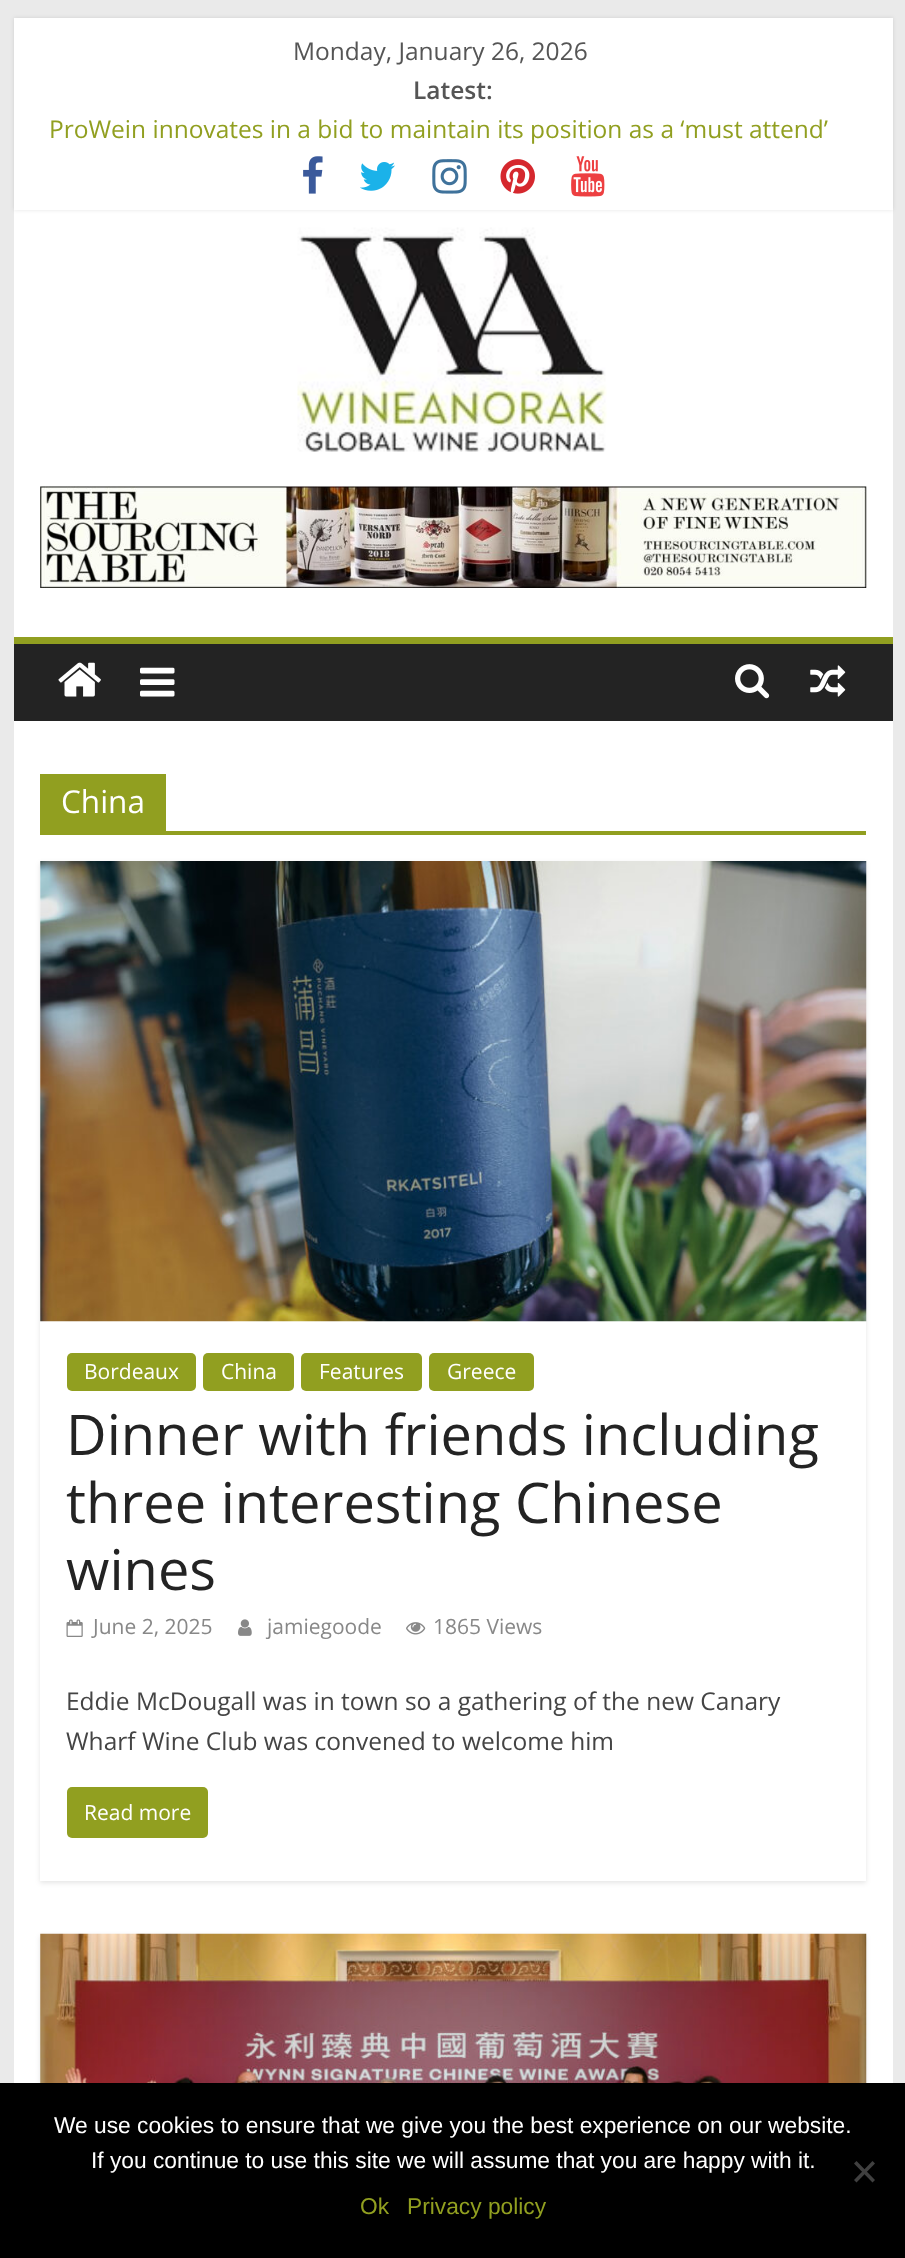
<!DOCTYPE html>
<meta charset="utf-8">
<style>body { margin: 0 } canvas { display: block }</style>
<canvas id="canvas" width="905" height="2258"></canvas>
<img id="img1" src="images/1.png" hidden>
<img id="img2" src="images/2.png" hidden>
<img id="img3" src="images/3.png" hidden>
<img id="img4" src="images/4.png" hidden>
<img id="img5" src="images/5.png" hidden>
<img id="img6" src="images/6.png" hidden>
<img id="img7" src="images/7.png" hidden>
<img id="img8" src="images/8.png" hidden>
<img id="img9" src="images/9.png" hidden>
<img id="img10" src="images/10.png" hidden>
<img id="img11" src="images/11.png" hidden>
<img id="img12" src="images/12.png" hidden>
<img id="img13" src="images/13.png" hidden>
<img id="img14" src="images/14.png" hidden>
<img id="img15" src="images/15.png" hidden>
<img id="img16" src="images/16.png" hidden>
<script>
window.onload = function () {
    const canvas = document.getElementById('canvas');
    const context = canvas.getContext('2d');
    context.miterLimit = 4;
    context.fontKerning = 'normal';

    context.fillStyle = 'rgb(234, 234, 234)';
    context.fillRect(0, 0, 905, 2258);
    context.fillStyle = 'rgb(255, 255, 255)';
    context.fillRect(14, 210, 879, 427);
    context.fillStyle = 'rgba(0, 0, 0, 0.1)';
    context.filter = 'blur(2px)';
    context.beginPath();
    context.rect(14, 18, 879, 192);
    context.fill();
    context.filter = 'none';
    context.fillStyle = 'rgb(255, 255, 255)';
    context.fillRect(14, 18, 879, 192);
    context.drawImage(document.getElementById('img1'), 303, 156, 20, 38);
    context.drawImage(document.getElementById('img2'), 360, 162, 35, 29);
    context.drawImage(document.getElementById('img3'), 432, 159, 35, 35);
    context.drawImage(document.getElementById('img4'), 500, 159, 35, 35);
    context.drawImage(document.getElementById('img5'), 571, 156, 34, 41);
    context.drawImage(document.getElementById('img6'), 297, 227, 310, 225);
    context.drawImage(document.getElementById('img7'), 40, 486, 827, 102);
    context.fillStyle = 'rgb(35, 35, 35)';
    context.fillRect(14, 644, 879, 77);
    context.fillStyle = 'rgb(145, 159, 32)';
    context.fillRect(14, 637, 879, 7);
    context.drawImage(document.getElementById('img8'), 58, 662, 43, 35);
    context.drawImage(document.getElementById('img9'), 140, 667, 35, 30);
    context.drawImage(document.getElementById('img10'), 735, 664, 35, 35);
    context.drawImage(document.getElementById('img11'), 810, 665, 36, 32);
    context.fillStyle = 'rgb(255, 255, 255)';
    context.fillRect(14, 721, 879, 1362);
    context.fillStyle = 'rgb(145, 159, 32)';
    context.fillRect(40, 831, 826, 4);
    context.fillRect(40, 774, 126, 57);
    context.save();
    context.beginPath();
    context.moveTo(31, 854);
    context.lineTo(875, 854);
    context.lineTo(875, 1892);
    context.lineTo(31, 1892);
    context.closePath();
    context.moveTo(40, 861);
    context.lineTo(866, 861);
    context.lineTo(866, 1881);
    context.lineTo(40, 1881);
    context.closePath();
    context.clip('evenodd');
    context.fillStyle = 'rgba(0, 0, 0, 0.1)';
    context.filter = 'blur(2.5px)';
    context.beginPath();
    context.rect(40, 863, 826, 1020);
    context.fill();
    context.filter = 'none';
    context.restore();
    context.drawImage(document.getElementById('img12'), 40, 861, 827, 461);
    context.beginPath();
    context.roundRect(67, 1353, 129, 38, 5);
    context.fill();
    context.beginPath();
    context.roundRect(203, 1353, 91, 38, 5);
    context.fill();
    context.beginPath();
    context.roundRect(301, 1353, 121, 38, 5);
    context.fill();
    context.beginPath();
    context.roundRect(429, 1353, 105, 38, 5);
    context.fill();
    context.drawImage(document.getElementById('img13'), 66, 1619, 17, 18);
    context.drawImage(document.getElementById('img14'), 238, 1619, 14, 17);
    context.drawImage(document.getElementById('img15'), 406, 1622, 20, 13);
    context.beginPath();
    context.roundRect(67, 1787, 141, 51, 5);
    context.fill();
    context.fillStyle = 'rgba(0, 0, 0, 0.1)';
    context.filter = 'blur(2.5px)';
    context.beginPath();
    context.rect(40, 1936, 826, 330);
    context.fill();
    context.filter = 'none';
    context.drawImage(document.getElementById('img16'), 40, 1933, 827, 150);
    context.fillStyle = 'rgb(0, 0, 0)';
    context.fillRect(0, 2083, 905, 175);
    context.fillStyle = 'rgb(64, 64, 64)';
    context.beginPath();
    context.moveTo(872.5, 2161);
    context.lineTo(875, 2163.5);
    context.lineTo(856.5, 2182.5);
    context.lineTo(854, 2180);
    context.closePath();
    context.fill();
    context.beginPath();
    context.moveTo(854, 2163.5);
    context.lineTo(856.5, 2161);
    context.lineTo(875, 2180);
    context.lineTo(872.5, 2182.5);
    context.closePath();
    context.fill();
    context.font = '24.5px Open Sans';
    context.fillStyle = 'rgb(85, 85, 85)';
    context.fillText('Monday, January 26, 2026', 293, 60);
    context.font = '600 24.5px Open Sans';
    context.fillText('Latest:', 413, 99);
    context.font = '24.5px Open Sans';
    context.fillStyle = 'rgb(145, 159, 32)';
    context.fillText('ProWein innovates in a bid to maintain its position as a ‘must attend’', 49, 138);
    context.font = '31.5px Open Sans';
    context.fillStyle = 'rgb(255, 255, 255)';
    context.fillText('China', 61, 813);
    context.font = '21px Open Sans';
    context.fillText('Bordeaux', 84, 1379);
    context.fillText('China', 221, 1379);
    context.fillText('Features', 319, 1379);
    context.fillText('Greece', 447, 1379);
    context.font = '56px Open Sans';
    context.fillStyle = 'rgb(35, 35, 35)';
    context.fillText('Dinner with friends including', 66, 1455);
    context.fillText('three interesting Chinese', 66, 1523);
    context.fillText('wines', 66, 1590);
    context.font = '21px Open Sans';
    context.fillStyle = 'rgb(136, 136, 136)';
    context.fillText('June 2, 2025', 93, 1634);
    context.fillText('jamiegoode', 267, 1634);
    context.fillText('1865 Views', 433, 1634);
    context.font = '24.5px Open Sans';
    context.fillStyle = 'rgb(68, 68, 68)';
    context.fillText('Eddie McDougall was in town so a gathering of the new Canary', 66, 1710);
    context.fillText('Wharf Wine Club was convened to welcome him', 66, 1750);
    context.font = '21px Open Sans';
    context.fillStyle = 'rgb(255, 255, 255)';
    context.fillText('Read more', 84, 1820);
    context.font = '22.75px Liberation Sans';
    context.fillText('We use cookies to ensure that we give you the best experience on our website.', 54, 2133);
    context.fillText('If you continue to use this site we will assume that you are happy with it.', 91, 2168);
    context.fillStyle = 'rgb(145, 159, 32)';
    context.fillText('Ok', 360, 2214);
    context.fillText('Privacy policy', 407, 2214);
};
</script>
